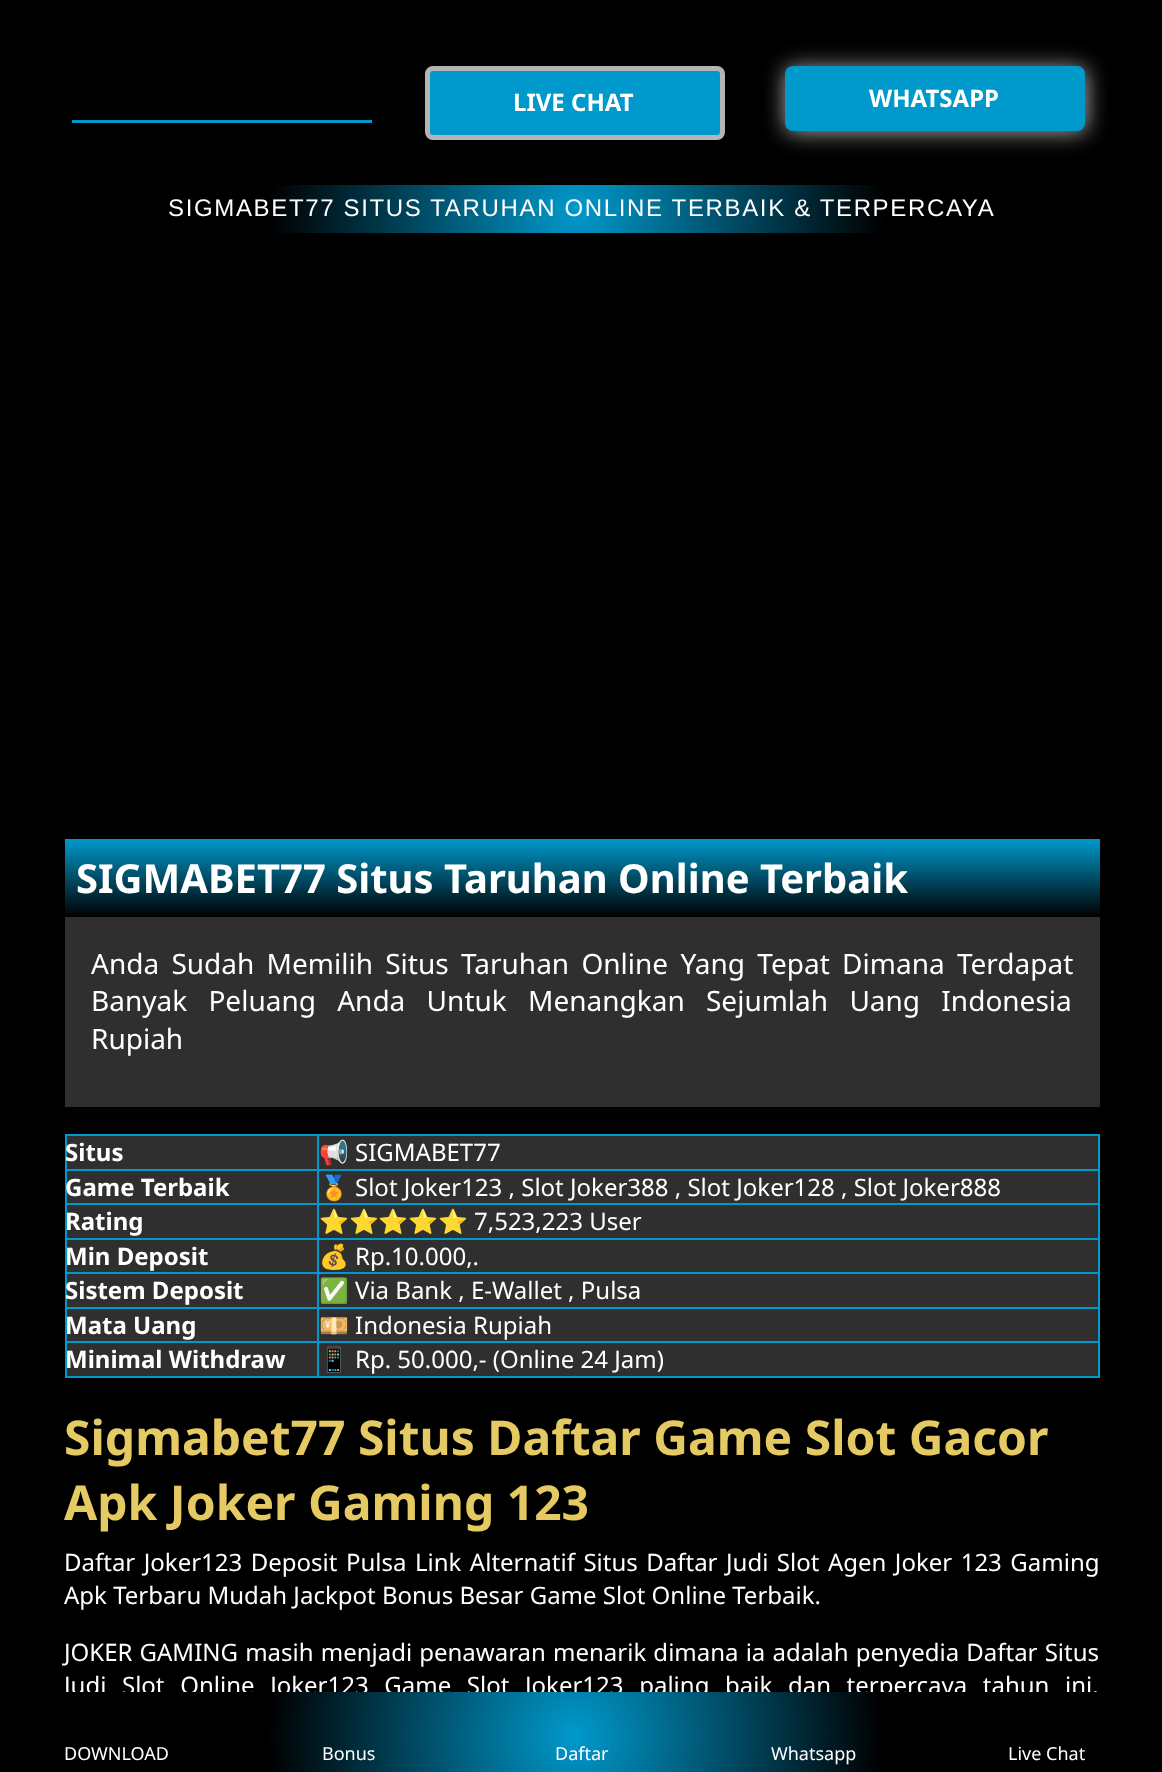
<!DOCTYPE html>
<meta charset="utf-8">
<style>body { margin: 0 } canvas { display: block }</style>
<canvas id="canvas" width="1162" height="1772"></canvas>
<script>
window.onload = function () {
    const canvas = document.getElementById('canvas');
    const context = canvas.getContext('2d');
    context.miterLimit = 4;
    context.fontKerning = 'normal';
    let gradient;

    context.fillStyle = 'rgb(0, 0, 0)';
    context.fillRect(0, 0, 1162, 1772);
    context.fillStyle = 'rgb(0, 153, 204)';
    context.beginPath();
    context.roundRect(427.5, 68.5, 295, 69, 5.5);
    context.fill();
    context.strokeStyle = 'rgb(181, 180, 180)';
    context.lineWidth = 5;
    context.stroke();
    context.fillStyle = 'rgb(181, 180, 180)';
    context.filter = 'blur(11px)';
    context.beginPath();
    context.roundRect(786, 68, 300, 64, 8);
    context.fill();
    context.filter = 'none';
    context.fillStyle = 'rgb(0, 153, 204)';
    context.beginPath();
    context.roundRect(785, 66, 300, 65, 8);
    context.fill();
    context.fillRect(72, 120, 300, 3);
    context.save();
    context.beginPath();
    context.roundRect(65, 185, 1035, 48, 8);
    context.clip();
    gradient = context.createRadialGradient(577, 165, 0, 577, 165, 321);
    gradient.addColorStop(0, 'rgb(0, 153, 204)');
    gradient.addColorStop(0.96, 'rgb(0, 0, 0)');
    context.fillStyle = gradient;
    context.fillRect(66, 185, 1032, 1);
    gradient = context.createRadialGradient(577, 210, 0, 577, 210, 321);
    gradient.addColorStop(0, 'rgb(0, 153, 204)');
    gradient.addColorStop(0.96, 'rgb(0, 0, 0)');
    context.fillStyle = gradient;
    context.fillRect(66, 186, 1032, 45);
    gradient = context.createRadialGradient(577, 255, 0, 577, 255, 321);
    gradient.addColorStop(0, 'rgb(0, 153, 204)');
    gradient.addColorStop(0.96, 'rgb(0, 0, 0)');
    context.fillStyle = gradient;
    context.fillRect(66, 231, 1032, 2);
    context.restore();
    gradient = context.createLinearGradient(582, 839, 582, 917);
    gradient.addColorStop(0, 'rgb(0, 153, 204)');
    gradient.addColorStop(1, 'rgb(0, 0, 0)');
    context.fillStyle = gradient;
    context.fillRect(65, 839, 1035, 77);
    context.fillStyle = 'rgb(47, 47, 47)';
    context.fillRect(65, 917, 1035, 190);
    context.fillStyle = 'rgb(0, 153, 204)';
    context.fillRect(65, 1134, 1035, 2);
    context.fillRect(1098, 1134, 2, 243);
    context.fillRect(65, 1376, 1035, 2);
    context.fillRect(65, 1134, 2, 243);
    context.fillStyle = 'rgb(47, 47, 47)';
    context.fillRect(67, 1136, 1031, 33);
    context.fillStyle = 'rgb(0, 153, 204)';
    context.fillRect(317, 1169, 783, 2);
    context.fillStyle = 'rgb(47, 47, 47)';
    context.fillRect(67, 1171, 1031, 32);
    context.fillStyle = 'rgb(0, 153, 204)';
    context.fillRect(317, 1203, 783, 2);
    context.fillStyle = 'rgb(47, 47, 47)';
    context.fillRect(67, 1205, 1031, 33);
    context.fillStyle = 'rgb(0, 153, 204)';
    context.fillRect(317, 1238, 783, 2);
    context.fillStyle = 'rgb(47, 47, 47)';
    context.fillRect(67, 1240, 1031, 32);
    context.fillStyle = 'rgb(0, 153, 204)';
    context.fillRect(317, 1272, 783, 2);
    context.fillStyle = 'rgb(47, 47, 47)';
    context.fillRect(67, 1274, 1031, 33);
    context.fillStyle = 'rgb(0, 153, 204)';
    context.fillRect(317, 1307, 783, 2);
    context.fillStyle = 'rgb(47, 47, 47)';
    context.fillRect(67, 1309, 1031, 32);
    context.fillStyle = 'rgb(0, 153, 204)';
    context.fillRect(317, 1341, 783, 2);
    context.fillStyle = 'rgb(47, 47, 47)';
    context.fillRect(67, 1343, 1031, 33);
    context.fillStyle = 'rgb(0, 153, 204)';
    context.fillRect(317, 1341, 2, 36);
    context.fillRect(65, 1341, 253, 2);
    context.fillRect(317, 1307, 2, 36);
    context.fillRect(65, 1307, 253, 2);
    context.fillRect(317, 1272, 2, 36);
    context.fillRect(65, 1272, 253, 2);
    context.fillRect(317, 1238, 2, 36);
    context.fillRect(65, 1238, 253, 2);
    context.fillRect(317, 1203, 2, 36);
    context.fillRect(65, 1203, 253, 2);
    context.fillRect(317, 1169, 2, 36);
    context.fillRect(65, 1169, 253, 2);
    context.fillRect(317, 1134, 2, 36);
    context.font = 'bold 24px Noto Sans';
    context.fillStyle = 'rgb(255, 255, 255)';
    context.fillText('LIVE CHAT', 513, 111);
    context.fillText('WHATSAPP', 869, 107);
    context.letterSpacing = '1.65px';
    context.font = '24px Liberation Sans';
    context.fillText('SIGMABET77 SITUS TARUHAN ONLINE TERBAIK & TERPERCAYA', 168, 216);
    context.letterSpacing = '0px';
    context.font = 'bold 40px Noto Sans';
    context.fillText('SIGMABET77 Situs Taruhan Online Terbaik', 76, 893);
    context.wordSpacing = '5px';
    context.font = '28px Noto Sans';
    context.fillText('Anda Sudah Memilih Situs Taruhan Online Yang Tepat Dimana Terdapat', 91, 974);
    context.wordSpacing = '14px';
    context.fillText('Banyak Peluang Anda Untuk Menangkan Sejumlah Uang Indonesia', 91, 1011);
    context.wordSpacing = '0px';
    context.fillText('Rupiah', 91, 1049);
    context.font = 'bold 24px Noto Sans';
    context.fillText('Situs', 65, 1161);
    context.font = '24px Noto Color Emoji';
    context.fillText('📢', 319, 1161);
    context.font = '24px Noto Sans';
    context.fillText('SIGMABET77', 355, 1161);
    context.font = 'bold 24px Noto Sans';
    context.fillText('Game Terbaik', 65, 1196);
    context.font = '24px Noto Color Emoji';
    context.fillText('🏅', 319, 1196);
    context.font = '24px Noto Sans';
    context.fillText('Slot Joker123 , Slot Joker388 , Slot Joker128 , Slot Joker888', 355, 1196);
    context.font = 'bold 24px Noto Sans';
    context.fillText('Rating', 65, 1230);
    context.font = '24px Noto Color Emoji';
    context.fillText('⭐⭐⭐⭐⭐', 319, 1230);
    context.font = '24px Noto Sans';
    context.fillText('7,523,223 User', 474, 1230);
    context.font = 'bold 24px Noto Sans';
    context.fillText('Min Deposit', 65, 1265);
    context.font = '24px Noto Color Emoji';
    context.fillText('💰', 319, 1265);
    context.font = '24px Noto Sans';
    context.fillText('Rp.10.000,.', 355, 1265);
    context.font = 'bold 24px Noto Sans';
    context.fillText('Sistem Deposit', 65, 1299);
    context.font = '24px Noto Color Emoji';
    context.fillText('✅', 319, 1299);
    context.font = '24px Noto Sans';
    context.fillText('Via Bank , E-Wallet , Pulsa', 355, 1299);
    context.font = 'bold 24px Noto Sans';
    context.fillText('Mata Uang', 65, 1334);
    context.font = '24px Noto Color Emoji';
    context.fillText('💴', 319, 1334);
    context.font = '24px Noto Sans';
    context.fillText('Indonesia Rupiah', 355, 1334);
    context.font = 'bold 24px Noto Sans';
    context.fillText('Minimal Withdraw', 65, 1368);
    context.font = '24px Noto Color Emoji';
    context.fillText('📱', 319, 1368);
    context.font = '24px Noto Sans';
    context.fillText('Rp. 50.000,- (Online 24 Jam)', 355, 1368);
    context.font = 'bold 48px Noto Sans';
    context.fillStyle = 'rgb(229, 202, 99)';
    context.fillText('Sigmabet77 Situs Daftar Game Slot Gacor', 64, 1455);
    context.fillText('Apk Joker Gaming 123', 64, 1520);
    context.wordSpacing = '2.25px';
    context.font = '24px Noto Sans';
    context.fillStyle = 'rgb(255, 255, 255)';
    context.fillText('Daftar Joker123 Deposit Pulsa Link Alternatif Situs Daftar Judi Slot Agen Joker 123 Gaming', 64, 1571);
    context.wordSpacing = '0px';
    context.fillText('Apk Terbaru Mudah Jackpot Bonus Besar Game Slot Online Terbaik.', 64, 1604);
    context.wordSpacing = '0.9px';
    context.fillText('JOKER GAMING masih menjadi penawaran menarik dimana ia adalah penyedia Daftar Situs', 64, 1661);
    context.wordSpacing = '9.4px';
    context.fillText('Judi Slot Online Joker123 Game Slot Joker123 paling baik dan terpercaya tahun ini.', 64, 1694);
    gradient = context.createRadialGradient(575, 1736, 0, 575, 1736, 321);
    gradient.addColorStop(0, 'rgb(0, 153, 204)');
    gradient.addColorStop(0.96, 'rgb(0, 0, 0)');
    context.fillStyle = gradient;
    context.fillRect(61, 1692, 1036, 80);
    context.wordSpacing = '0px';
    context.font = '18px Noto Sans';
    context.fillStyle = 'rgb(255, 255, 255)';
    context.fillText('DOWNLOAD', 64, 1760);
    context.fillText('Bonus', 322, 1760);
    context.fillText('Daftar', 555, 1760);
    context.fillText('Whatsapp', 771, 1760);
    context.fillText('Live Chat', 1008, 1760);
};
</script>
